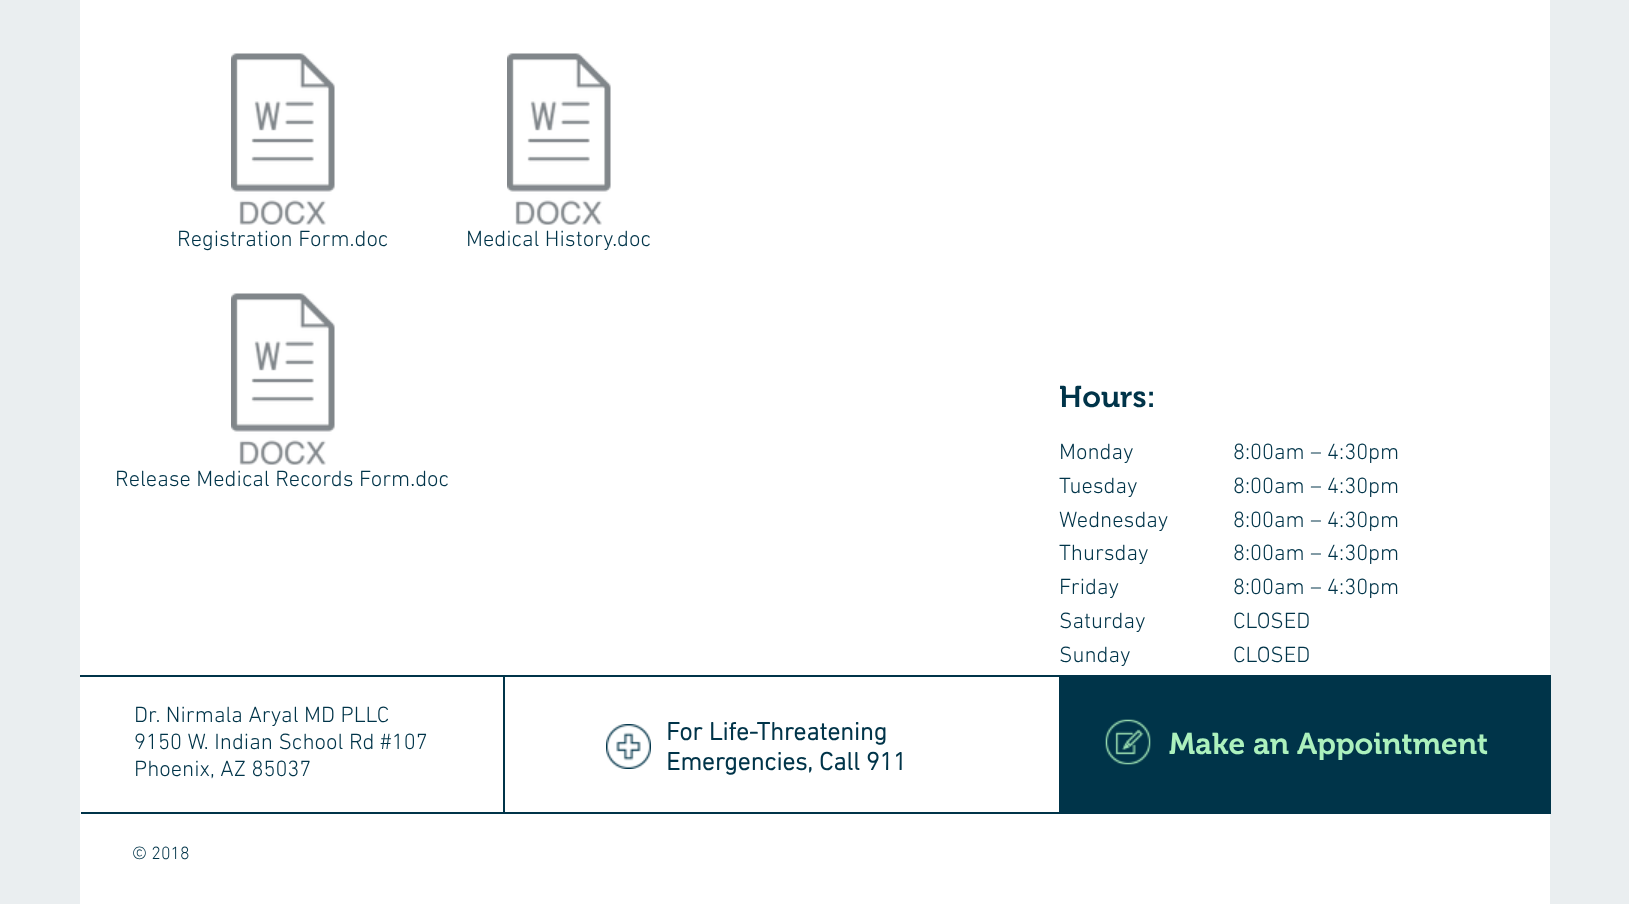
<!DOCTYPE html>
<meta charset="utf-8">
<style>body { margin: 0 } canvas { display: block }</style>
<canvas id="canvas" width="1629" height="904"></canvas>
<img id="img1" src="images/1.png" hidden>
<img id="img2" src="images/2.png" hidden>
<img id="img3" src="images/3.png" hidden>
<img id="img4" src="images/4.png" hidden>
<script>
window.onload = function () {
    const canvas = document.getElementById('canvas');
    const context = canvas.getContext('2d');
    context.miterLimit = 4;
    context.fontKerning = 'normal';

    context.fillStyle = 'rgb(234, 238, 240)';
    context.fillRect(0, 0, 1629, 904);
    context.fillStyle = 'rgb(255, 255, 255)';
    context.fillRect(80, 0, 1470, 904);
    context.drawImage(document.getElementById('img1'), 231, 53, 104, 172);
    context.drawImage(document.getElementById('img2'), 507, 53, 104, 172);
    context.drawImage(document.getElementById('img1'), 231, 293, 104, 172);
    context.fillStyle = 'rgb(0, 52, 73)';
    context.fillRect(80, 675, 979, 2);
    context.fillRect(81, 812, 1470, 2);
    context.fillRect(503, 677, 2, 136);
    context.drawImage(document.getElementById('img3'), 606, 724, 45, 45);
    context.fillRect(1059, 675, 492, 137);
    context.drawImage(document.getElementById('img4'), 1105, 719, 46, 46);
    context.font = '300 22.5px "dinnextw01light"';
    context.fillText('Registration Form.doc', 177, 246);
    context.fillText('Medical History.doc', 466, 246);
    context.fillText('Release Medical Records Form.doc', 115, 486);
    context.font = '600 30px "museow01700"';
    context.fillText('Hours:', 1059, 407);
    context.font = '300 22.5px "dinnextw01light"';
    context.fillText('Monday', 1059, 459);
    context.fillText('Tuesday', 1059, 493);
    context.fillText('Wednesday', 1059, 527);
    context.fillText('Thursday', 1059, 560);
    context.fillText('Friday', 1059, 594);
    context.fillText('Saturday', 1059, 628);
    context.fillText('Sunday', 1059, 662);
    context.fillText('8:00am – 4:30pm', 1233, 459);
    context.fillText('8:00am – 4:30pm', 1233, 493);
    context.fillText('8:00am – 4:30pm', 1233, 527);
    context.fillText('8:00am – 4:30pm', 1233, 560);
    context.fillText('8:00am – 4:30pm', 1233, 594);
    context.fillText('CLOSED', 1233, 628);
    context.fillText('CLOSED', 1233, 662);
    context.fillText('Dr. Nirmala Aryal MD PLLC', 134, 722);
    context.fillText('9150 W. Indian School Rd #107', 134, 749);
    context.fillText('Phoenix, AZ 85037', 134, 776);
    context.font = 'bold 25.5px "dinnextw01light"';
    context.fillText('For Life-Threatening', 666, 740);
    context.fillText('Emergencies, Call 911', 666, 770);
    context.font = '600 30px "museow01700"';
    context.fillStyle = 'rgb(172, 241, 189)';
    context.fillText('Make an Appointment', 1169, 754);
    context.font = '300 18px "dinnextw01light"';
    context.fillStyle = 'rgb(0, 52, 73)';
    context.fillText('© 2018', 132, 859);
};
</script>
